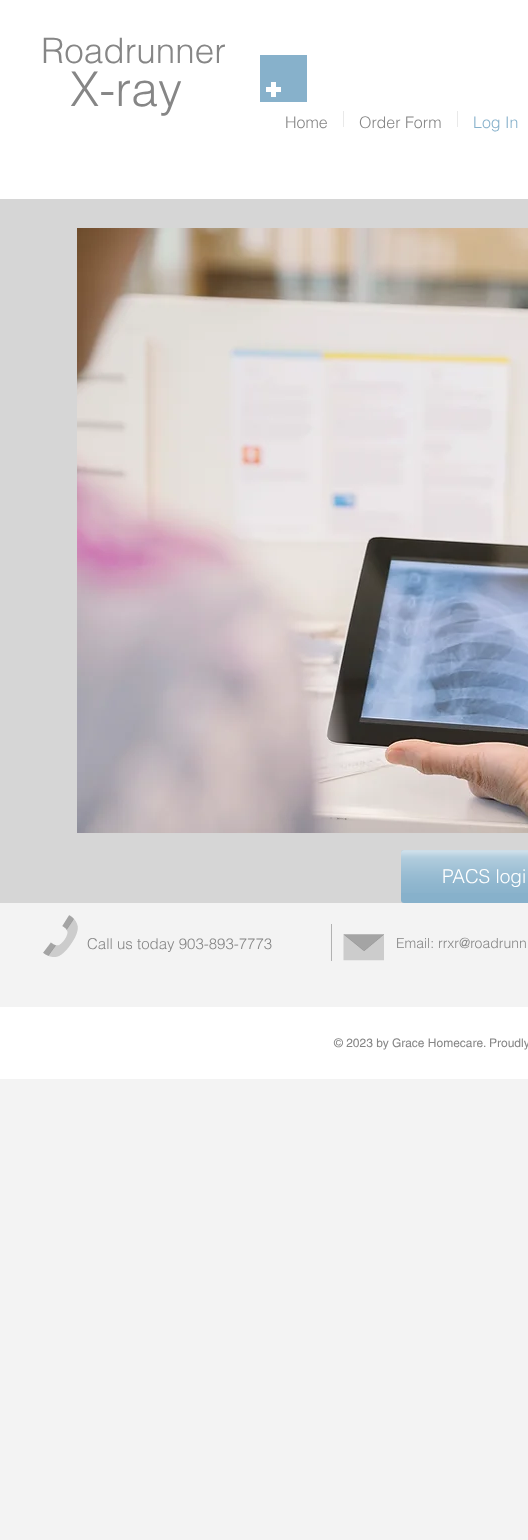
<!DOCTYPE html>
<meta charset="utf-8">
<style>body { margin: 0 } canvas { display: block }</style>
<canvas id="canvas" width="528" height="1540"></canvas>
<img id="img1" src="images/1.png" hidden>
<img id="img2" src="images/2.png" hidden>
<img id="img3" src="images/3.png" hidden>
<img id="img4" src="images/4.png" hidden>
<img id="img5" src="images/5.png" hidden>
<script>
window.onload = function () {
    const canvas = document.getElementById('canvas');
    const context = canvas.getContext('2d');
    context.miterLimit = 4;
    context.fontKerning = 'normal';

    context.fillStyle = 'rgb(243, 243, 243)';
    context.fillRect(0, 0, 528, 1540);
    context.fillStyle = 'rgb(255, 255, 255)';
    context.fillRect(0, 0, 528, 199);
    context.drawImage(document.getElementById('img1'), 260, 55, 47, 47);
    context.fillStyle = 'rgb(233, 233, 233)';
    context.fillRect(343, 111, 1, 16);
    context.fillRect(457, 111, 1, 16);
    context.fillStyle = 'rgb(214, 214, 214)';
    context.fillRect(0, 199, 528, 704);
    context.drawImage(document.getElementById('img2'), 77, 228, 451, 605);
    context.fillStyle = 'rgb(135, 177, 203)';
    context.beginPath();
    context.roundRect(401, 850, 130, 53, 3);
    context.fill();
    context.drawImage(document.getElementById('img3'), 401, 850, 127, 43);
    context.drawImage(document.getElementById('img4'), 43, 915, 35, 42);
    context.fillStyle = 'rgb(178, 178, 178)';
    context.fillRect(331, 924, 1, 37);
    context.drawImage(document.getElementById('img5'), 343, 934, 41, 27);
    context.fillStyle = 'rgb(255, 255, 255)';
    context.fillRect(0, 1007, 528, 72);
    context.font = '300 35px helvetica';
    context.fillStyle = 'rgb(134, 134, 134)';
    context.fillText('Roadrunner', 41, 63);
    context.font = '300 48px helvetica';
    context.fillText('X-ray', 70, 106);
    context.font = '300 16px helvetica';
    context.fillText('Home', 285, 128);
    context.fillText('Order Form', 359, 128);
    context.fillStyle = 'rgb(135, 177, 203)';
    context.fillText('Log In', 473, 128);
    context.font = '300 19px helvetica';
    context.fillStyle = 'rgb(255, 255, 255)';
    context.fillText('PACS logi', 442, 883);
    context.font = '300 15px helvetica';
    context.fillStyle = 'rgb(134, 134, 134)';
    context.fillText('Call us today 903-893-7773', 87, 949);
    context.font = '300 14px helvetica';
    context.fillText('Email: rrxr@roadrunn', 396, 948);
    context.font = '12px helvetica';
    context.fillText('© 2023 by Grace Homecare. Proudly', 334, 1047);
};
</script>
